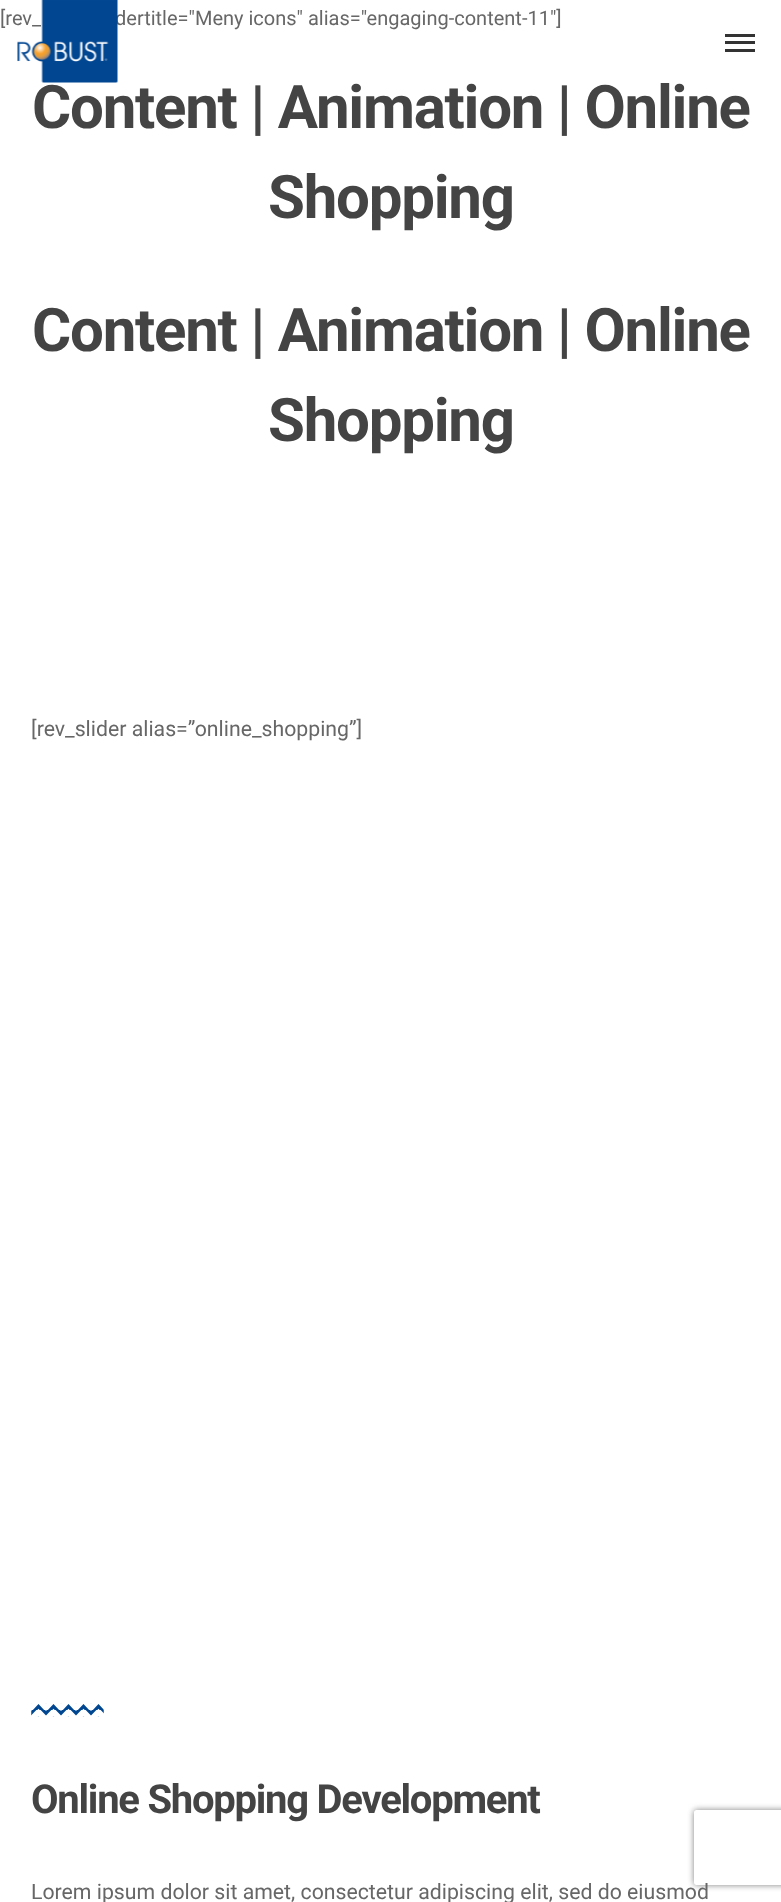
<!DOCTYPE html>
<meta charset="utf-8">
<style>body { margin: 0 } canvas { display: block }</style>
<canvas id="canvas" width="781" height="1902"></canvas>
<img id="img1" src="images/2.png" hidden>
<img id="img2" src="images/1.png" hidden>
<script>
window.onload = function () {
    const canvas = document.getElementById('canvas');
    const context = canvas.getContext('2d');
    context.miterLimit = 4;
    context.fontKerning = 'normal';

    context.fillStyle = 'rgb(255, 255, 255)';
    context.fillRect(0, 0, 781, 1902);
    context.fillStyle = 'rgb(51, 51, 51)';
    context.fillRect(725, 34, 30, 3);
    context.fillRect(725, 41, 30, 3);
    context.fillRect(725, 49, 30, 3);
    context.drawImage(document.getElementById('img1'), 31, 1703, 73, 14);
    context.save();
    context.beginPath();
    context.moveTo(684, 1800);
    context.lineTo(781, 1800);
    context.lineTo(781, 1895);
    context.lineTo(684, 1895);
    context.closePath();
    context.moveTo(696.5, 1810);
    context.lineTo(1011.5, 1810);
    context.bezierCurveTo(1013, 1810, 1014, 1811, 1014, 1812.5);
    context.lineTo(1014, 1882.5);
    context.bezierCurveTo(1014, 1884, 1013, 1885, 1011.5, 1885);
    context.lineTo(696.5, 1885);
    context.bezierCurveTo(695, 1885, 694, 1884, 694, 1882.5);
    context.lineTo(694, 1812.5);
    context.bezierCurveTo(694, 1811, 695, 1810, 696.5, 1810);
    context.closePath();
    context.clip('evenodd');
    context.fillStyle = 'rgb(128, 128, 128)';
    context.filter = 'blur(3px)';
    context.beginPath();
    context.roundRect(694, 1810, 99, 75, 2.5);
    context.fill();
    context.filter = 'none';
    context.restore();
    context.font = '20px Roboto';
    context.fillStyle = 'rgb(103, 103, 103)';
    context.fillText('[rev_', 0, 25);
    context.fillText('dertitle="Meny icons" alias="engaging-content-11"]', 115, 25);
    context.drawImage(document.getElementById('img2'), 17, 0, 101, 83);
    context.letterSpacing = '-1.25px';
    context.font = 'bold 60px Roboto';
    context.fillStyle = 'rgb(68, 68, 68)';
    context.fillText('Content | Animation | Online', 32, 128);
    context.fillText('Shopping', 268, 218);
    context.fillText('Content | Animation | Online', 32, 351);
    context.fillText('Shopping', 268, 441);
    context.letterSpacing = '0px';
    context.font = '21.25px Roboto';
    context.fillStyle = 'rgb(103, 103, 103)';
    context.fillText('[rev_slider alias=”online_shopping”]', 31, 736);
    context.letterSpacing = '-1.25px';
    context.font = 'bold 40px Roboto';
    context.fillStyle = 'rgb(68, 68, 68)';
    context.fillText('Online Shopping Development', 31, 1813);
    context.letterSpacing = '0px';
    context.font = '21.25px Roboto';
    context.fillStyle = 'rgb(103, 103, 103)';
    context.fillText('Lorem ipsum dolor sit amet, consectetur adipiscing elit, sed do eiusmod', 31, 1899);
};
</script>
